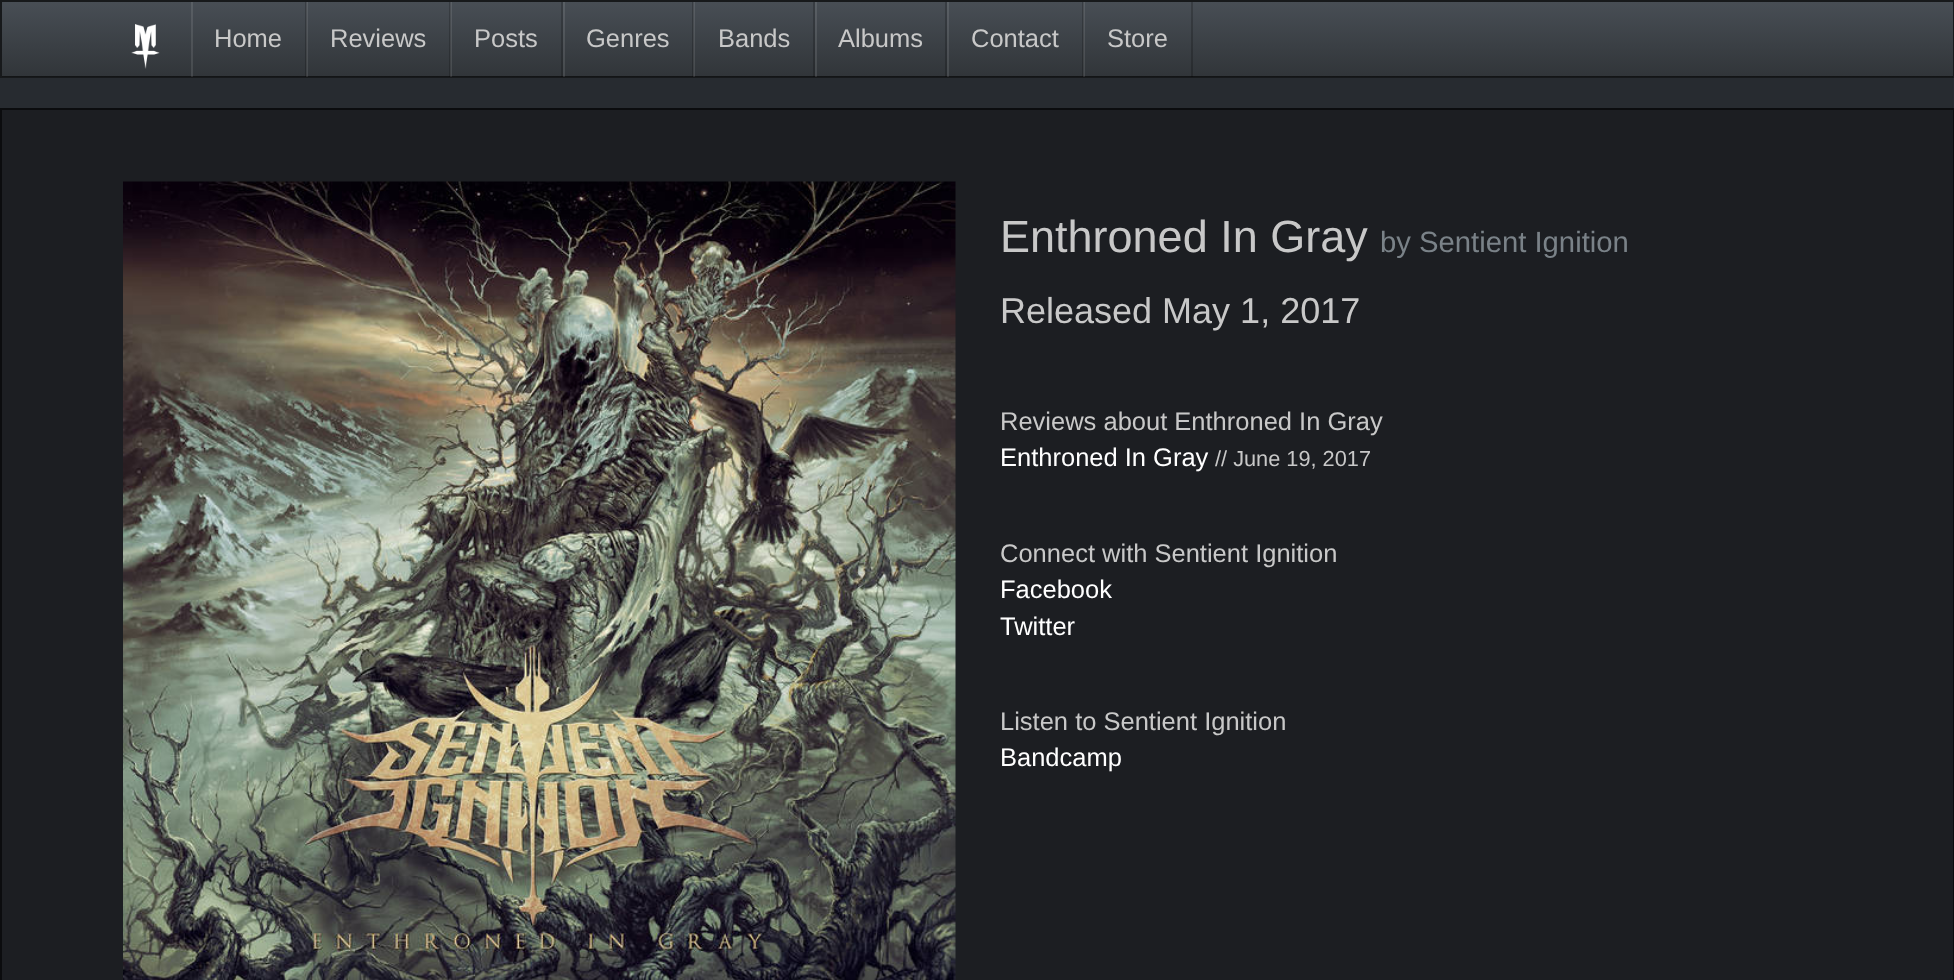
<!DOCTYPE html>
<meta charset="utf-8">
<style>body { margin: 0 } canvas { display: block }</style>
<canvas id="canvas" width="1954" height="980"></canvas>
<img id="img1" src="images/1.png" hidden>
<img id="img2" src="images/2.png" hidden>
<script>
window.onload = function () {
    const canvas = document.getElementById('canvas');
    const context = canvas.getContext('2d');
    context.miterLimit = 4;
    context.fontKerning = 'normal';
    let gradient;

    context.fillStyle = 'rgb(39, 43, 48)';
    context.fillRect(0, 0, 1954, 980);
    context.fillStyle = 'rgb(58, 63, 68)';
    context.fillRect(0, 0, 1954, 78);
    gradient = context.createLinearGradient(977, 1.5, 977, 77);
    gradient.addColorStop(0, 'rgb(72, 78, 85)');
    gradient.addColorStop(0.6, 'rgb(58, 63, 68)');
    gradient.addColorStop(1, 'rgb(49, 53, 57)');
    context.fillStyle = gradient;
    context.fillRect(2, 2, 1951, 75);
    context.strokeStyle = 'rgba(0, 0, 0, 0.6)';
    context.lineWidth = 2;
    context.strokeRect(1, 1, 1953, 76);
    context.drawImage(document.getElementById('img1'), 131, 24, 29, 45);
    context.fillStyle = 'rgba(0, 0, 0, 0.2)';
    context.fillRect(305, 2, 2, 75);
    context.fillStyle = 'rgba(255, 255, 255, 0.1)';
    context.fillRect(191, 2, 2, 75);
    context.fillStyle = 'rgba(0, 0, 0, 0.2)';
    context.fillRect(449, 2, 2, 75);
    context.fillStyle = 'rgba(255, 255, 255, 0.1)';
    context.fillRect(306, 2, 2, 75);
    context.fillStyle = 'rgba(0, 0, 0, 0.2)';
    context.fillRect(561, 2, 2, 75);
    context.fillStyle = 'rgba(255, 255, 255, 0.1)';
    context.fillRect(450, 2, 2, 75);
    context.fillStyle = 'rgba(0, 0, 0, 0.2)';
    context.fillRect(692, 2, 2, 75);
    context.fillStyle = 'rgba(255, 255, 255, 0.1)';
    context.fillRect(563, 2, 2, 75);
    context.fillStyle = 'rgba(0, 0, 0, 0.2)';
    context.fillRect(813, 2, 2, 75);
    context.fillStyle = 'rgba(255, 255, 255, 0.1)';
    context.fillRect(693, 2, 2, 75);
    context.fillStyle = 'rgba(0, 0, 0, 0.2)';
    context.fillRect(945, 2, 2, 75);
    context.fillStyle = 'rgba(255, 255, 255, 0.1)';
    context.fillRect(815, 2, 2, 75);
    context.fillStyle = 'rgba(0, 0, 0, 0.2)';
    context.fillRect(1082, 2, 2, 75);
    context.fillStyle = 'rgba(255, 255, 255, 0.1)';
    context.fillRect(947, 2, 2, 75);
    context.fillStyle = 'rgba(0, 0, 0, 0.2)';
    context.fillRect(1191, 2, 2, 75);
    context.fillStyle = 'rgba(255, 255, 255, 0.1)';
    context.fillRect(1083, 2, 2, 75);
    context.fillStyle = 'rgb(28, 30, 34)';
    context.beginPath();
    context.rect(1, 109, 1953, 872);
    context.fill();
    context.strokeStyle = 'rgb(11, 12, 14)';
    context.stroke();
    context.drawImage(document.getElementById('img2'), 123, 181, 833, 799);
    context.font = '25.5px Liberation Sans';
    context.fillStyle = 'rgb(200, 200, 200)';
    context.fillText('Home', 214, 47);
    context.fillText('Reviews', 330, 47);
    context.fillText('Posts', 474, 47);
    context.fillText('Genres', 586, 47);
    context.fillText('Bands', 718, 47);
    context.fillText('Albums', 838, 47);
    context.fillText('Contact', 971, 47);
    context.fillText('Store', 1107, 47);
    context.font = '45px Liberation Sans';
    context.fillText('Enthroned In Gray', 1000, 252);
    context.font = '29.25px Liberation Sans';
    context.fillStyle = 'rgb(122, 130, 136)';
    context.fillText('by Sentient Ignition', 1380, 252);
    context.font = '36px Liberation Sans';
    context.fillStyle = 'rgb(200, 200, 200)';
    context.fillText('Released May 1, 2017', 1000, 323);
    context.font = '25.5px Liberation Sans';
    context.fillText('Reviews about Enthroned In Gray', 1000, 430);
    context.fillStyle = 'rgb(255, 255, 255)';
    context.fillText('Enthroned In Gray', 1000, 466);
    context.font = '21.75px Liberation Sans';
    context.fillStyle = 'rgb(200, 200, 200)';
    context.fillText('// June 19, 2017', 1215, 466);
    context.font = '25.5px Liberation Sans';
    context.fillText('Connect with Sentient Ignition', 1000, 562);
    context.fillStyle = 'rgb(255, 255, 255)';
    context.fillText('Facebook', 1000, 598);
    context.fillText('Twitter', 1000, 635);
    context.fillStyle = 'rgb(200, 200, 200)';
    context.fillText('Listen to Sentient Ignition', 1000, 730);
    context.fillStyle = 'rgb(255, 255, 255)';
    context.fillText('Bandcamp', 1000, 766);
};
</script>
